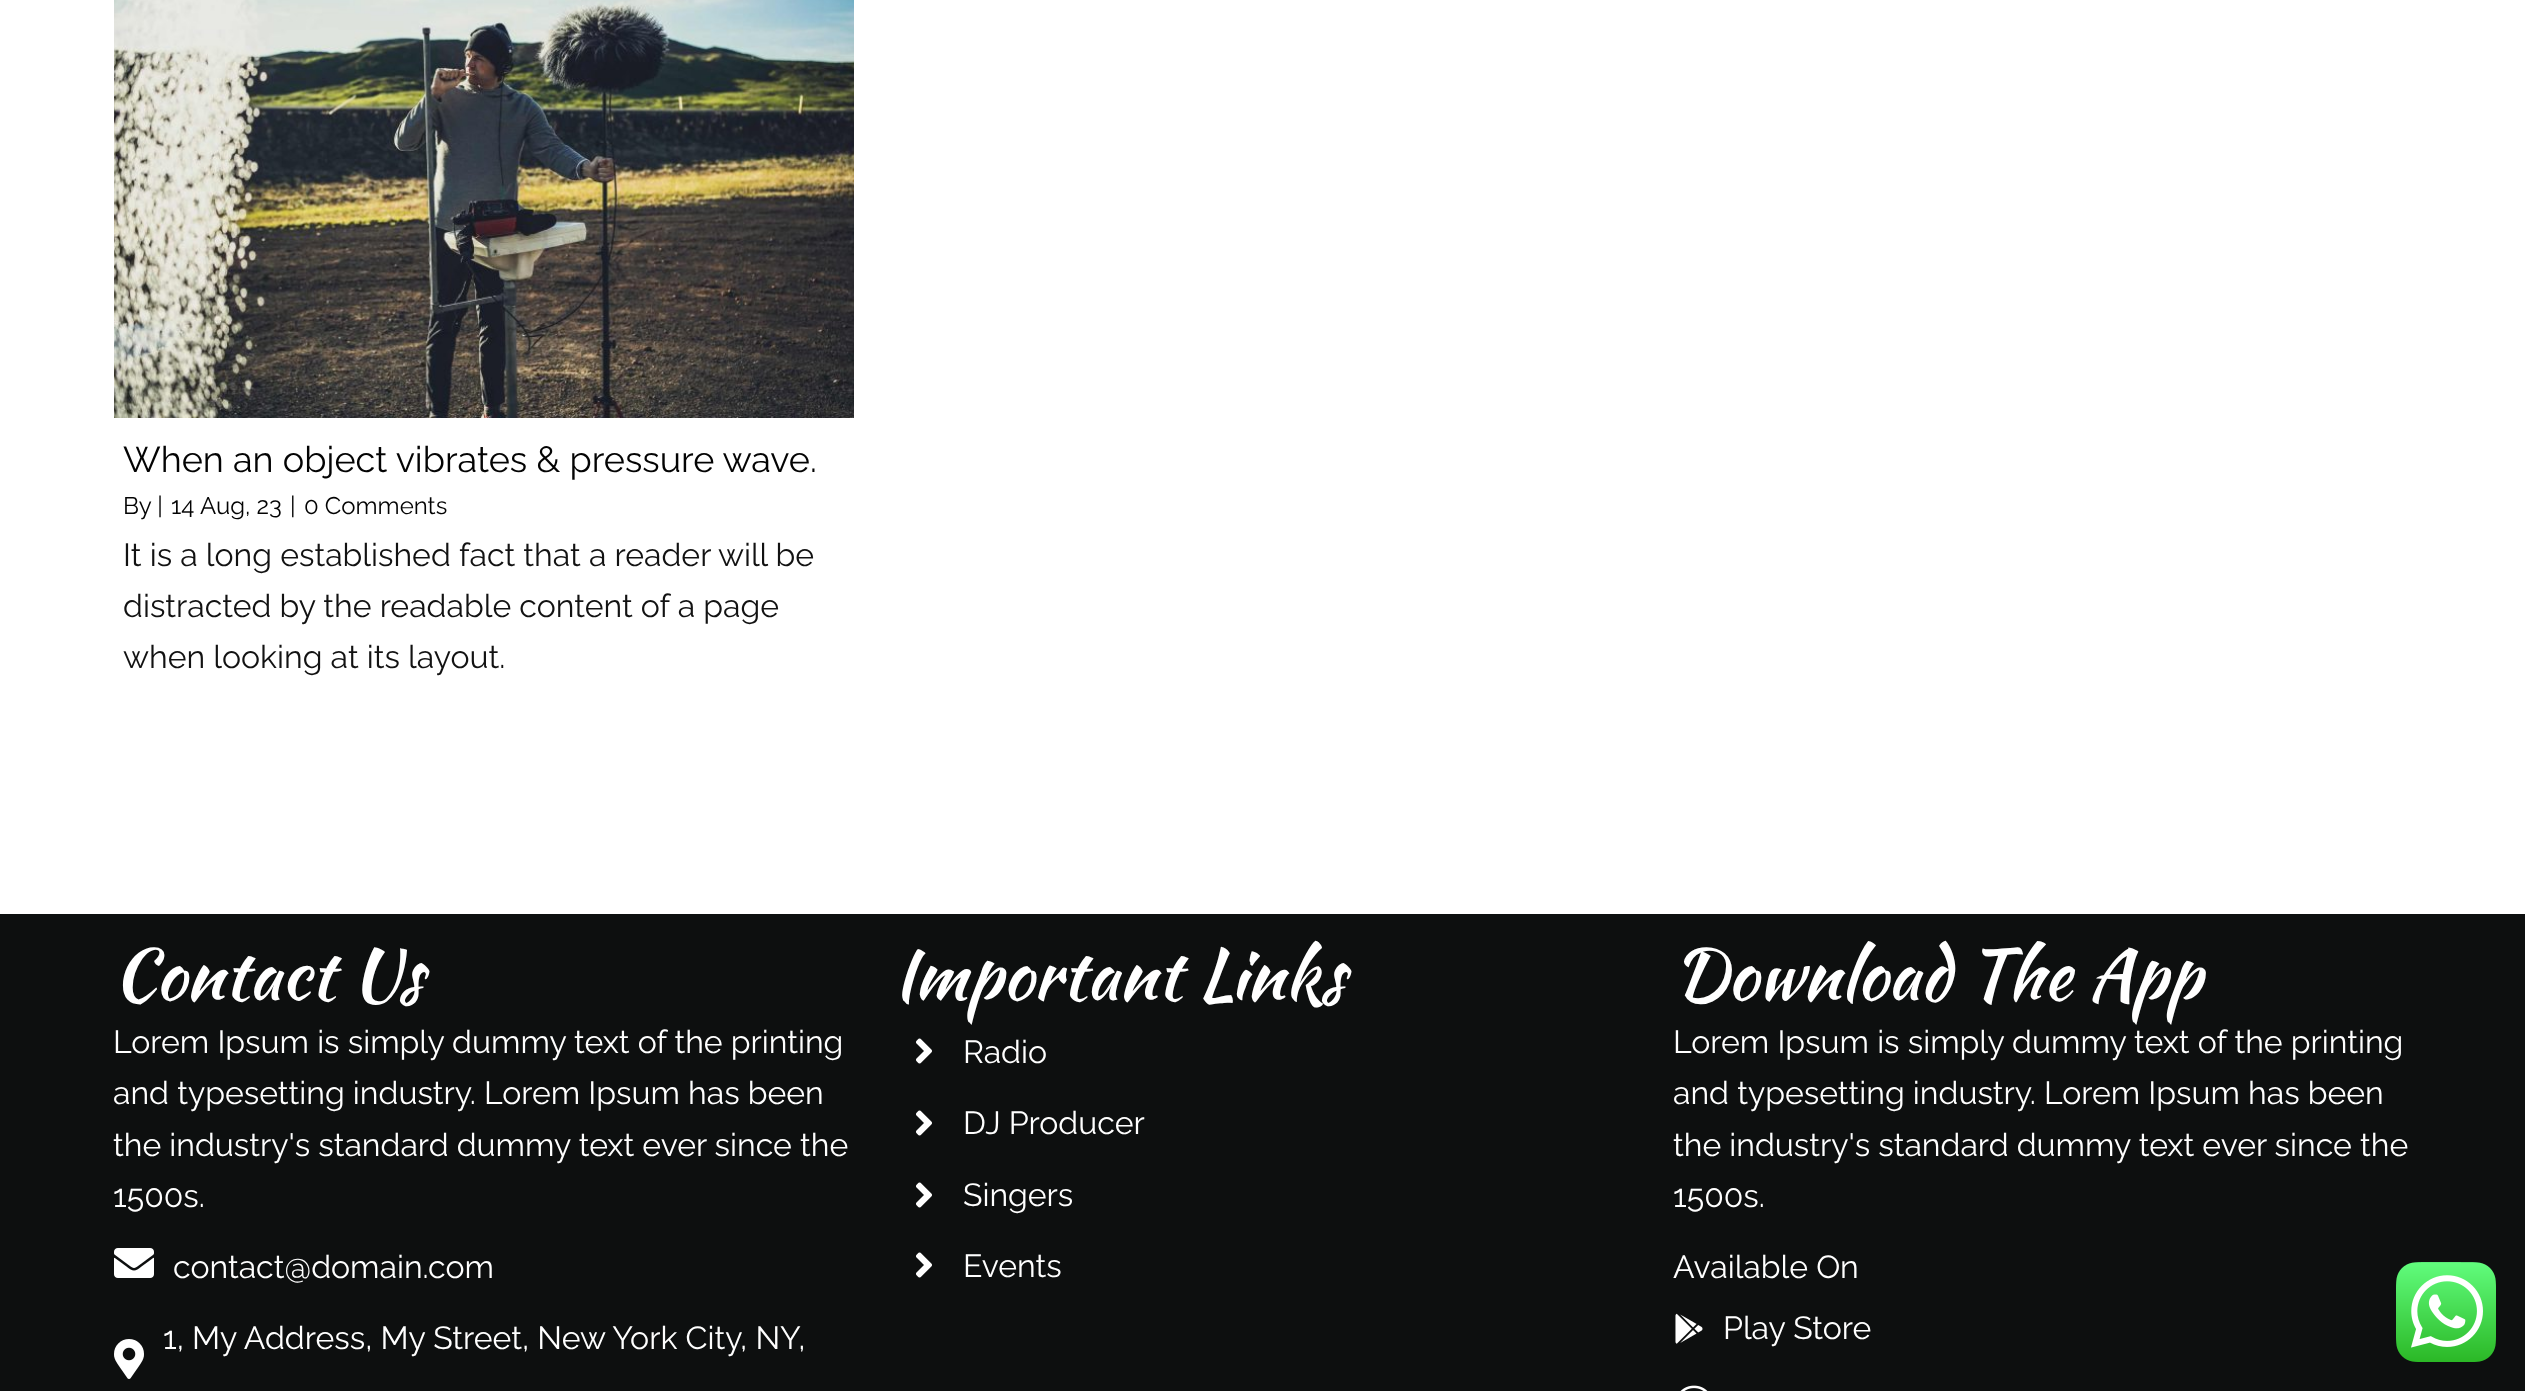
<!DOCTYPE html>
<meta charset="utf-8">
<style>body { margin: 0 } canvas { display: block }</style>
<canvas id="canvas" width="2525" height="1391"></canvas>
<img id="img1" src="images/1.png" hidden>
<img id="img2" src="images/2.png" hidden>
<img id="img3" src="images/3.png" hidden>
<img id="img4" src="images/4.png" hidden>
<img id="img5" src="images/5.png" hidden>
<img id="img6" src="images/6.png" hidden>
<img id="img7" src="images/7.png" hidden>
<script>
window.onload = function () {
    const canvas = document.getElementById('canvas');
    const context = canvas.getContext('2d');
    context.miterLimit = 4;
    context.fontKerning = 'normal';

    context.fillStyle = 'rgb(255, 255, 255)';
    context.fillRect(0, 0, 2525, 1391);
    context.drawImage(document.getElementById('img1'), 114, 0, 740, 418);
    context.fillStyle = 'rgb(13, 15, 15)';
    context.fillRect(0, 914, 2525, 477);
    context.drawImage(document.getElementById('img2'), 114, 1248, 40, 30);
    context.drawImage(document.getElementById('img3'), 114, 1339, 30, 40);
    context.drawImage(document.getElementById('img4'), 916, 1038, 16, 26);
    context.drawImage(document.getElementById('img4'), 916, 1110, 16, 26);
    context.drawImage(document.getElementById('img4'), 916, 1182, 16, 26);
    context.drawImage(document.getElementById('img4'), 916, 1252, 16, 26);
    context.drawImage(document.getElementById('img5'), 1675, 1313, 28, 31);
    context.drawImage(document.getElementById('img6'), 1680, 1385, 28, 6);
    context.drawImage(document.getElementById('img7'), 2396, 1262, 100, 100);
    context.font = '100 36px Raleway';
    context.fillStyle = 'rgb(3, 3, 3)';
    context.fillText('When an object vibrates & pressure wave.', 123, 472);
    context.font = '100 24px Raleway';
    context.fillText('By |', 123, 514);
    context.fillText('14', 171, 514);
    context.fillText('Aug, 23', 200, 514);
    context.fillText('|', 290, 514);
    context.fillText('0 Comments', 304, 514);
    context.font = '100 32px Raleway';
    context.fillStyle = 'rgb(18, 18, 18)';
    context.fillText('It is a long established fact that a reader will be', 123, 566);
    context.fillText('distracted by the readable content of a page', 123, 617);
    context.fillText('when looking at its layout.', 123, 668);
    context.font = '70px Kaushan Script';
    context.fillStyle = 'rgb(255, 255, 255)';
    context.fillText('Contact Us', 113, 999);
    context.font = '100 32px Raleway';
    context.fillText('Lorem Ipsum is simply dummy text of the printing', 113, 1053);
    context.fillText('and typesetting industry. Lorem Ipsum has been', 113, 1104);
    context.fillText('the industry\'s standard dummy text ever since the', 113, 1156);
    context.fillText('1500s.', 113, 1207);
    context.fillText('contact@domain.com', 173, 1278);
    context.fillText('1, My Address, My Street, New York City, NY,', 163, 1349);
    context.font = '70px Kaushan Script';
    context.fillText('Important Links', 893, 999);
    context.font = '100 32px Raleway';
    context.fillText('Radio', 963, 1063);
    context.fillText('DJ Producer', 963, 1134);
    context.fillText('Singers', 963, 1206);
    context.fillText('Events', 963, 1277);
    context.font = '70px Kaushan Script';
    context.fillText('Download The App', 1673, 999);
    context.font = '100 32px Raleway';
    context.fillText('Lorem Ipsum is simply dummy text of the printing', 1673, 1053);
    context.fillText('and typesetting industry. Lorem Ipsum has been', 1673, 1104);
    context.fillText('the industry\'s standard dummy text ever since the', 1673, 1156);
    context.fillText('1500s.', 1673, 1207);
    context.fillText('Available On', 1673, 1278);
    context.fillText('Play Store', 1723, 1339);
};
</script>
